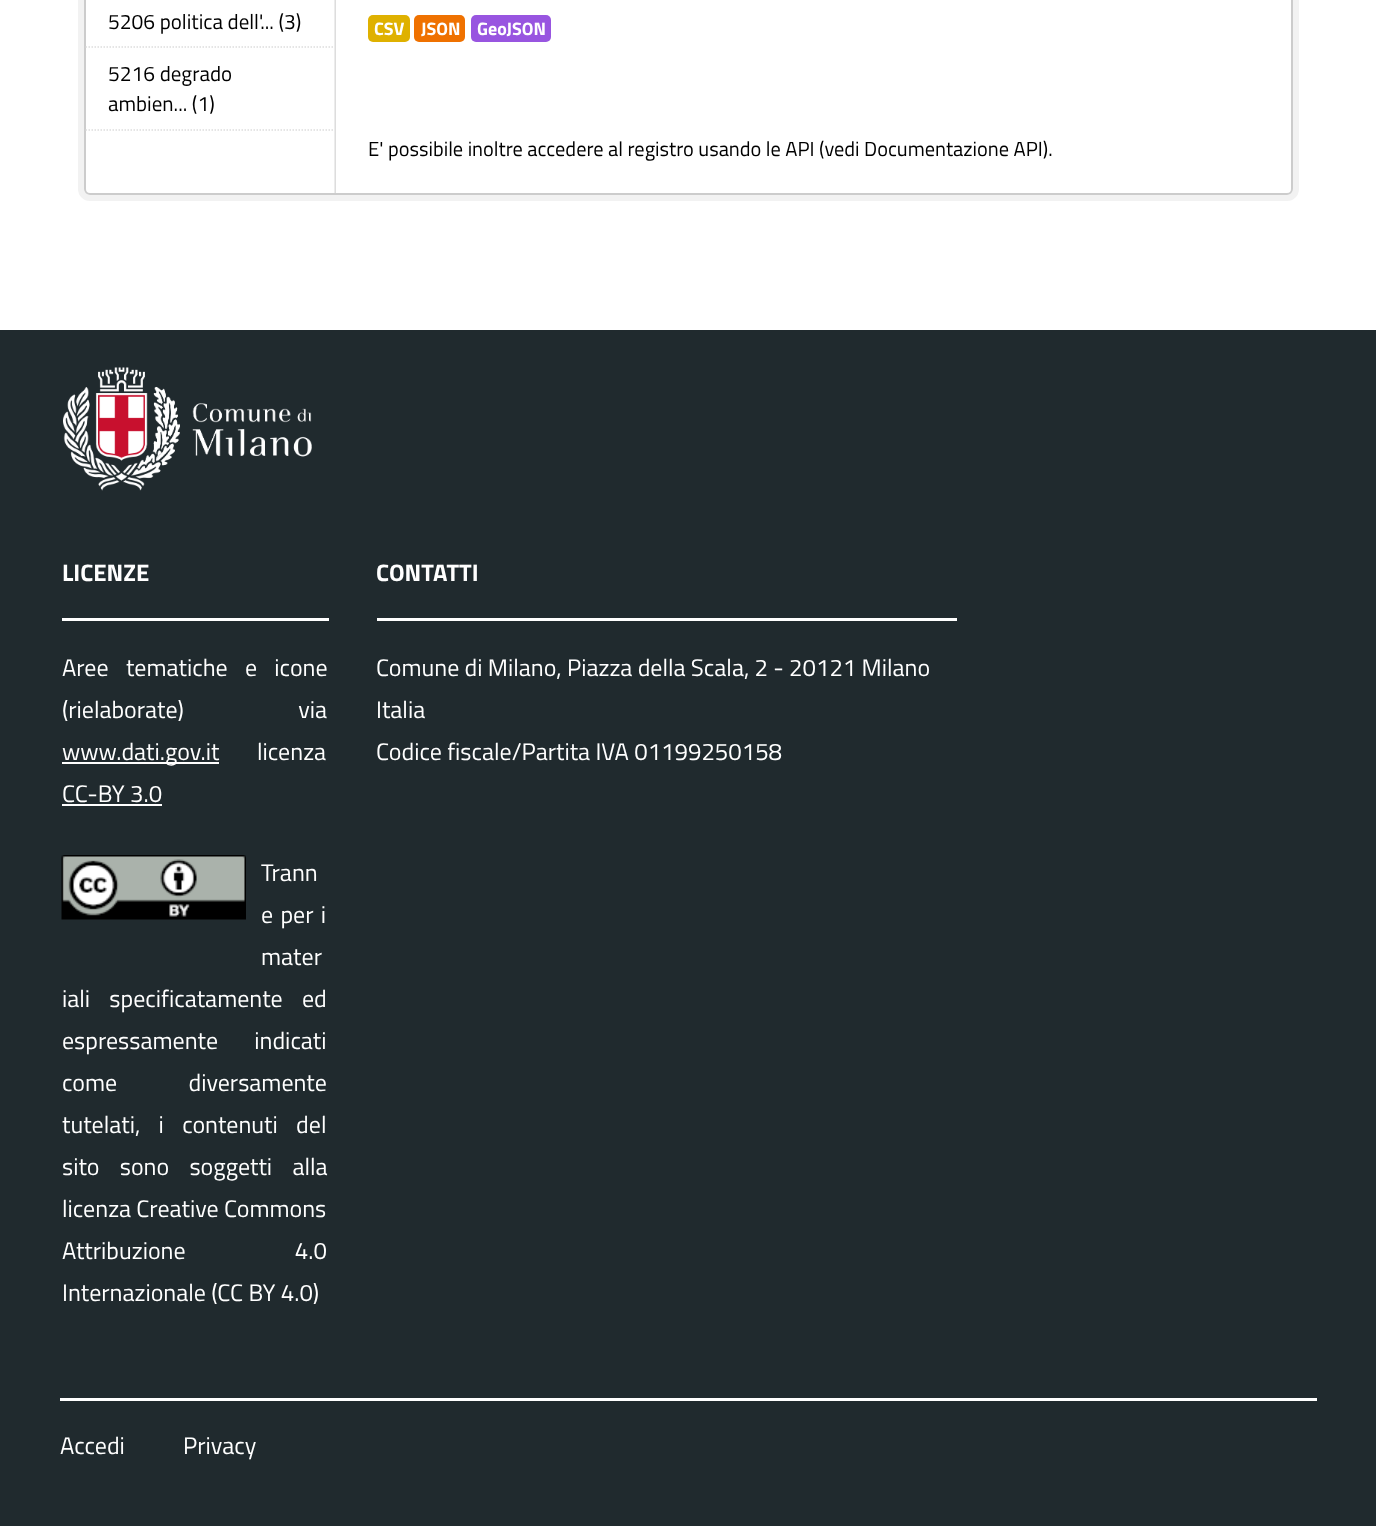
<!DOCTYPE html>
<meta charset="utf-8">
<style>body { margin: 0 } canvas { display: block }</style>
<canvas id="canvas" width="1376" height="1526"></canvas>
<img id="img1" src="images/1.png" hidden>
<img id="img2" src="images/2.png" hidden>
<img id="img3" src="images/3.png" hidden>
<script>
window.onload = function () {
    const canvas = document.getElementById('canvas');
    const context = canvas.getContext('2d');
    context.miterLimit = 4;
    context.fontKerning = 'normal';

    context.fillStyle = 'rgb(255, 255, 255)';
    context.fillRect(0, 0, 1376, 1526);
    context.beginPath();
    context.roundRect(81, -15, 1215, 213, 9);
    context.strokeStyle = 'rgb(242, 242, 242)';
    context.lineWidth = 6;
    context.stroke();
    context.beginPath();
    context.roundRect(84, -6, 1209, 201, 6);
    context.fill();
    context.drawImage(document.getElementById('img1'), 334, 0, 2, 193);
    context.beginPath();
    context.roundRect(85, -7, 1207, 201, 5);
    context.strokeStyle = 'rgb(204, 204, 204)';
    context.lineWidth = 2;
    context.stroke();
    context.beginPath();
    context.moveTo(85.5, 47);
    context.lineTo(334.5, 47);
    context.strokeStyle = 'rgb(221, 221, 221)';
    context.lineWidth = 1.5;
    context.setLineDash([1.5, 1.5]);
    context.stroke();
    context.beginPath();
    context.moveTo(85.5, 130);
    context.lineTo(334.5, 130);
    context.stroke();
    context.fillStyle = 'rgb(223, 177, 0)';
    context.beginPath();
    context.roundRect(368, 15, 42, 27, 5);
    context.fill();
    context.fillStyle = 'rgb(239, 113, 0)';
    context.beginPath();
    context.roundRect(414, 15, 51, 27, 5);
    context.fill();
    context.fillStyle = 'rgb(152, 85, 224)';
    context.beginPath();
    context.roundRect(471, 15, 80, 27, 5);
    context.fill();
    context.fillStyle = 'rgb(32, 42, 46)';
    context.fillRect(0, 330, 1376, 1196);
    context.drawImage(document.getElementById('img2'), 63, 367, 249, 124);
    context.fillStyle = 'rgb(255, 255, 255)';
    context.fillRect(62, 618, 267, 3);
    context.fillRect(377, 618, 580, 3);
    context.fillRect(62, 762, 157, 2);
    context.fillRect(62, 804, 100, 2);
    context.drawImage(document.getElementById('img3'), 61, 855, 185, 65);
    context.fillRect(60, 1398, 1257, 3);
    context.font = '21px Titillium Web';
    context.fillStyle = 'rgb(0, 0, 0)';
    context.fillText('5206 politica dell\'... (3)', 108, 29);
    context.fillText('5216 degrado', 108, 81);
    context.fillText('ambien... (1)', 108, 111);
    context.font = 'bold 18px Titillium Web';
    context.fillStyle = 'rgb(255, 255, 255)';
    context.fillText('CSV', 374, 35);
    context.fillText('JSON', 421, 35);
    context.fillText('GeoJSON', 477, 35);
    context.font = '20.4px Titillium Web';
    context.fillStyle = 'rgb(0, 0, 0)';
    context.fillText('E\' possibile inoltre accedere al registro usando le API (vedi Documentazione API).', 368, 156);
    context.font = 'bold 24px Titillium Web';
    context.fillStyle = 'rgb(255, 255, 255)';
    context.fillText('LICENZE', 62, 581);
    context.fillText('CONTATTI', 376, 581);
    context.wordSpacing = '12px';
    context.font = '24px Titillium Web';
    context.fillText('Aree tematiche e icone', 62, 676);
    context.wordSpacing = '109px';
    context.fillText('(rielaborate) via', 62, 718);
    context.wordSpacing = '0px';
    context.fillText('www.dati.gov.it', 62, 760);
    context.fillText('licenza', 257, 760);
    context.fillText('CC-BY 3.0', 62, 802);
    context.fillText('Trann', 261, 881);
    context.wordSpacing = '2px';
    context.fillText('e per i', 261, 923);
    context.wordSpacing = '0px';
    context.fillText('mater', 261, 965);
    context.wordSpacing = '14px';
    context.fillText('iali specificatamente ed', 62, 1007);
    context.wordSpacing = '31px';
    context.fillText('espressamente indicati', 62, 1049);
    context.wordSpacing = '66px';
    context.fillText('come diversamente', 62, 1091);
    context.wordSpacing = '13px';
    context.fillText('tutelati, i contenuti del', 62, 1133);
    context.wordSpacing = '15px';
    context.fillText('sito sono soggetti alla', 62, 1175);
    context.wordSpacing = '0px';
    context.fillText('licenza Creative Commons', 62, 1217);
    context.wordSpacing = '104px';
    context.fillText('Attribuzione 4.0', 62, 1259);
    context.wordSpacing = '0px';
    context.fillText('Internazionale (CC BY 4.0)', 62, 1301);
    context.fillText('Comune di Milano, Piazza della Scala, 2 - 20121 Milano', 376, 676);
    context.fillText('Italia', 376, 718);
    context.fillText('Codice fiscale/Partita IVA 01199250158', 376, 760);
    context.fillText('Accedi', 60, 1454);
    context.fillText('Privacy', 183, 1454);
};
</script>
